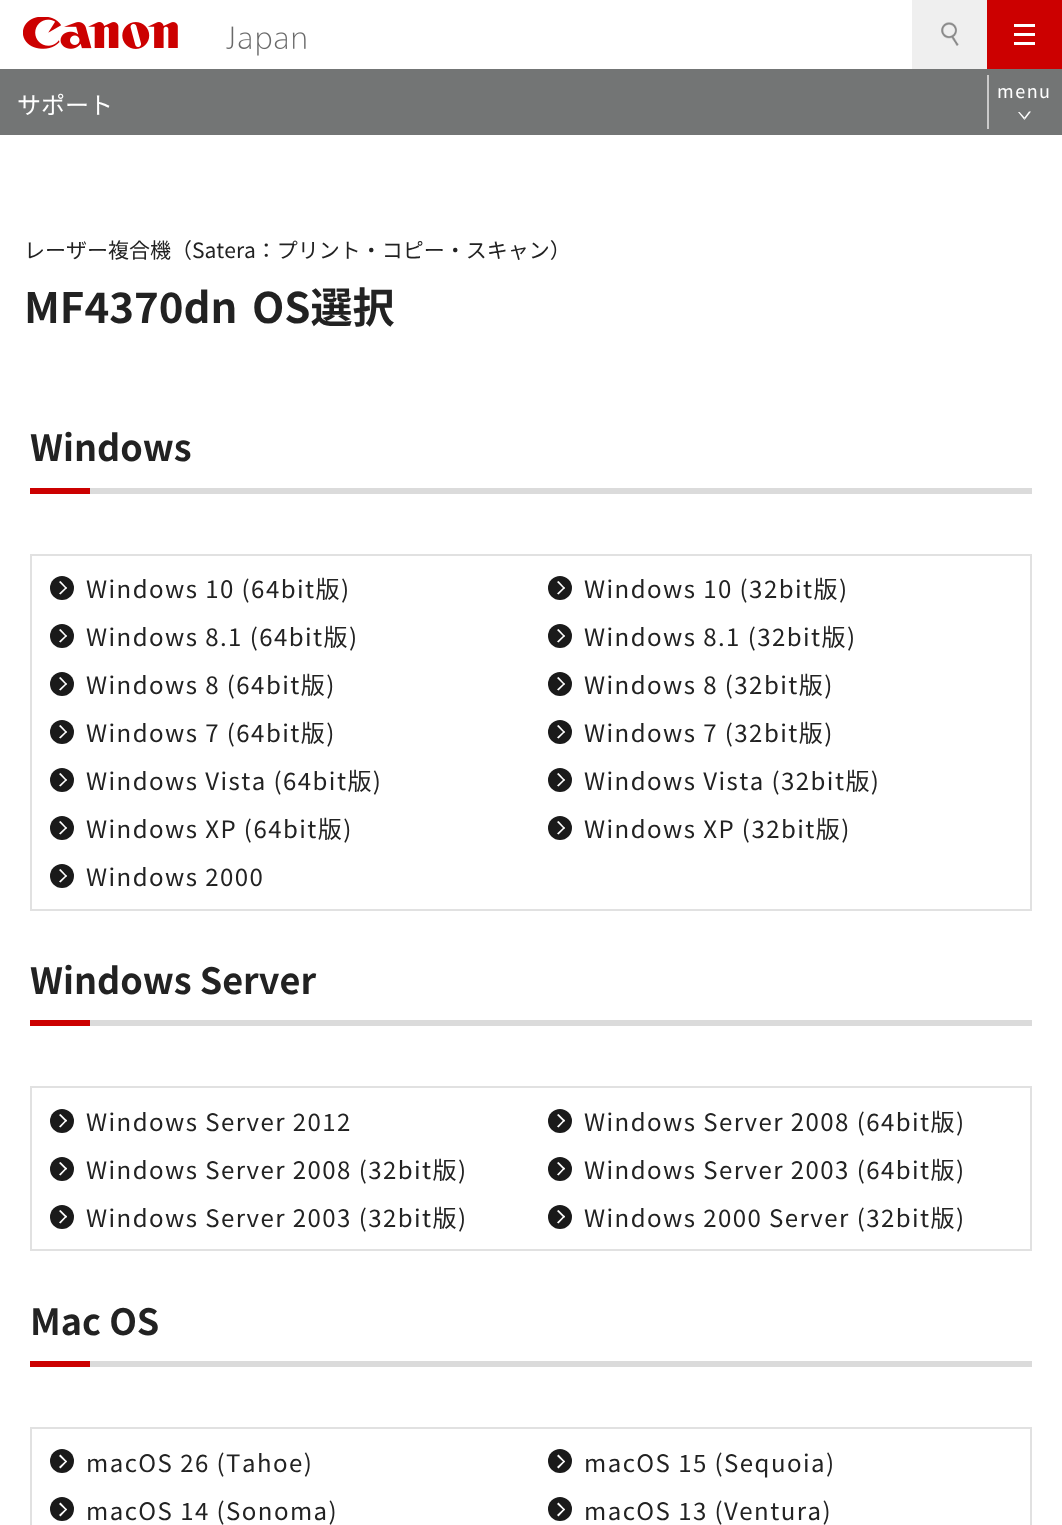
<!DOCTYPE html>
<meta charset="utf-8">
<style>body { margin: 0 } canvas { display: block }</style>
<canvas id="canvas" width="1062" height="1525"></canvas>
<img id="img1" src="images/1.png" hidden>
<img id="img2" src="images/2.png" hidden>
<script>
window.onload = function () {
    const canvas = document.getElementById('canvas');
    const context = canvas.getContext('2d');
    context.miterLimit = 4;
    context.fontKerning = 'none';

    context.fillStyle = 'rgb(255, 255, 255)';
    context.fillRect(0, 0, 1062, 1525);
    context.drawImage(document.getElementById('img1'), 23, 17, 283, 39);
    context.fillStyle = 'rgb(239, 239, 239)';
    context.fillRect(912, 0, 75, 69);
    context.drawImage(document.getElementById('img2'), 941, 22, 18, 24);
    context.fillStyle = 'rgb(204, 0, 0)';
    context.fillRect(987, 0, 75, 69);
    context.fillStyle = 'rgb(255, 255, 255)';
    context.fillRect(1014, 24, 21, 3);
    context.fillRect(1014, 33, 21, 3);
    context.fillRect(1014, 42, 21, 3);
    context.fillStyle = 'rgb(115, 117, 117)';
    context.fillRect(0, 69, 1062, 66);
    context.fillStyle = 'rgb(202, 202, 202)';
    context.fillRect(987, 75, 2, 54);
    context.fillStyle = 'rgb(255, 255, 255)';
    context.beginPath();
    context.moveTo(1031, 111.5);
    context.lineTo(1024.5, 120);
    context.lineTo(1024.5, 117.5);
    context.lineTo(1029, 111.5);
    context.closePath();
    context.fill();
    context.beginPath();
    context.moveTo(1024.5, 120);
    context.lineTo(1018, 112);
    context.lineTo(1019.5, 112);
    context.lineTo(1024.5, 117.5);
    context.closePath();
    context.fill();
    context.fillStyle = 'rgb(204, 0, 0)';
    context.fillRect(30, 488, 60, 6);
    context.fillStyle = 'rgb(219, 219, 219)';
    context.fillRect(90, 488, 942, 6);
    context.strokeStyle = 'rgb(225, 225, 225)';
    context.lineWidth = 2;
    context.strokeRect(31, 555, 1000, 355);
    context.fillStyle = 'rgb(26, 26, 26)';
    context.beginPath();
    context.arc(62, 588, 12, 0, 2 * Math.PI);
    context.fill();
    context.fillStyle = 'rgb(255, 255, 255)';
    context.beginPath();
    context.moveTo(60.5, 581);
    context.lineTo(67, 588);
    context.lineTo(66, 589);
    context.lineTo(59, 582);
    context.closePath();
    context.fill();
    context.beginPath();
    context.moveTo(66, 587);
    context.lineTo(67, 588);
    context.lineTo(60.5, 594.5);
    context.lineTo(59, 593.5);
    context.closePath();
    context.fill();
    context.fillStyle = 'rgb(26, 26, 26)';
    context.beginPath();
    context.arc(560, 588, 12, 0, 2 * Math.PI);
    context.fill();
    context.fillStyle = 'rgb(255, 255, 255)';
    context.beginPath();
    context.moveTo(558.5, 581);
    context.lineTo(565, 588);
    context.lineTo(564, 589);
    context.lineTo(557, 582);
    context.closePath();
    context.fill();
    context.beginPath();
    context.moveTo(564, 587);
    context.lineTo(565, 588);
    context.lineTo(558.5, 594.5);
    context.lineTo(557, 593.5);
    context.closePath();
    context.fill();
    context.fillStyle = 'rgb(26, 26, 26)';
    context.beginPath();
    context.arc(62, 636, 12, 0, 2 * Math.PI);
    context.fill();
    context.fillStyle = 'rgb(255, 255, 255)';
    context.beginPath();
    context.moveTo(60.5, 629);
    context.lineTo(67, 636);
    context.lineTo(66, 637);
    context.lineTo(59, 630);
    context.closePath();
    context.fill();
    context.beginPath();
    context.moveTo(66, 635);
    context.lineTo(67, 636);
    context.lineTo(60.5, 642.5);
    context.lineTo(59, 641.5);
    context.closePath();
    context.fill();
    context.fillStyle = 'rgb(26, 26, 26)';
    context.beginPath();
    context.arc(560, 636, 12, 0, 2 * Math.PI);
    context.fill();
    context.fillStyle = 'rgb(255, 255, 255)';
    context.beginPath();
    context.moveTo(558.5, 629);
    context.lineTo(565, 636);
    context.lineTo(564, 637);
    context.lineTo(557, 630);
    context.closePath();
    context.fill();
    context.beginPath();
    context.moveTo(564, 635);
    context.lineTo(565, 636);
    context.lineTo(558.5, 642.5);
    context.lineTo(557, 641.5);
    context.closePath();
    context.fill();
    context.fillStyle = 'rgb(26, 26, 26)';
    context.beginPath();
    context.arc(62, 684, 12, 0, 2 * Math.PI);
    context.fill();
    context.fillStyle = 'rgb(255, 255, 255)';
    context.beginPath();
    context.moveTo(60.5, 677);
    context.lineTo(67, 684);
    context.lineTo(66, 685);
    context.lineTo(59, 678);
    context.closePath();
    context.fill();
    context.beginPath();
    context.moveTo(66, 683);
    context.lineTo(67, 684);
    context.lineTo(60.5, 690.5);
    context.lineTo(59, 689.5);
    context.closePath();
    context.fill();
    context.fillStyle = 'rgb(26, 26, 26)';
    context.beginPath();
    context.arc(560, 684, 12, 0, 2 * Math.PI);
    context.fill();
    context.fillStyle = 'rgb(255, 255, 255)';
    context.beginPath();
    context.moveTo(558.5, 677);
    context.lineTo(565, 684);
    context.lineTo(564, 685);
    context.lineTo(557, 678);
    context.closePath();
    context.fill();
    context.beginPath();
    context.moveTo(564, 683);
    context.lineTo(565, 684);
    context.lineTo(558.5, 690.5);
    context.lineTo(557, 689.5);
    context.closePath();
    context.fill();
    context.fillStyle = 'rgb(26, 26, 26)';
    context.beginPath();
    context.arc(62, 732, 12, 0, 2 * Math.PI);
    context.fill();
    context.fillStyle = 'rgb(255, 255, 255)';
    context.beginPath();
    context.moveTo(60.5, 725);
    context.lineTo(67, 732);
    context.lineTo(66, 733);
    context.lineTo(59, 726);
    context.closePath();
    context.fill();
    context.beginPath();
    context.moveTo(66, 731);
    context.lineTo(67, 732);
    context.lineTo(60.5, 738.5);
    context.lineTo(59, 737.5);
    context.closePath();
    context.fill();
    context.fillStyle = 'rgb(26, 26, 26)';
    context.beginPath();
    context.arc(560, 732, 12, 0, 2 * Math.PI);
    context.fill();
    context.fillStyle = 'rgb(255, 255, 255)';
    context.beginPath();
    context.moveTo(558.5, 725);
    context.lineTo(565, 732);
    context.lineTo(564, 733);
    context.lineTo(557, 726);
    context.closePath();
    context.fill();
    context.beginPath();
    context.moveTo(564, 731);
    context.lineTo(565, 732);
    context.lineTo(558.5, 738.5);
    context.lineTo(557, 737.5);
    context.closePath();
    context.fill();
    context.fillStyle = 'rgb(26, 26, 26)';
    context.beginPath();
    context.arc(62, 780, 12, 0, 2 * Math.PI);
    context.fill();
    context.fillStyle = 'rgb(255, 255, 255)';
    context.beginPath();
    context.moveTo(60.5, 773);
    context.lineTo(67, 780);
    context.lineTo(66, 781);
    context.lineTo(59, 774);
    context.closePath();
    context.fill();
    context.beginPath();
    context.moveTo(66, 779);
    context.lineTo(67, 780);
    context.lineTo(60.5, 786.5);
    context.lineTo(59, 785.5);
    context.closePath();
    context.fill();
    context.fillStyle = 'rgb(26, 26, 26)';
    context.beginPath();
    context.arc(560, 780, 12, 0, 2 * Math.PI);
    context.fill();
    context.fillStyle = 'rgb(255, 255, 255)';
    context.beginPath();
    context.moveTo(558.5, 773);
    context.lineTo(565, 780);
    context.lineTo(564, 781);
    context.lineTo(557, 774);
    context.closePath();
    context.fill();
    context.beginPath();
    context.moveTo(564, 779);
    context.lineTo(565, 780);
    context.lineTo(558.5, 786.5);
    context.lineTo(557, 785.5);
    context.closePath();
    context.fill();
    context.fillStyle = 'rgb(26, 26, 26)';
    context.beginPath();
    context.arc(62, 828, 12, 0, 2 * Math.PI);
    context.fill();
    context.fillStyle = 'rgb(255, 255, 255)';
    context.beginPath();
    context.moveTo(60.5, 821);
    context.lineTo(67, 828);
    context.lineTo(66, 829);
    context.lineTo(59, 822);
    context.closePath();
    context.fill();
    context.beginPath();
    context.moveTo(66, 827);
    context.lineTo(67, 828);
    context.lineTo(60.5, 834.5);
    context.lineTo(59, 833.5);
    context.closePath();
    context.fill();
    context.fillStyle = 'rgb(26, 26, 26)';
    context.beginPath();
    context.arc(560, 828, 12, 0, 2 * Math.PI);
    context.fill();
    context.fillStyle = 'rgb(255, 255, 255)';
    context.beginPath();
    context.moveTo(558.5, 821);
    context.lineTo(565, 828);
    context.lineTo(564, 829);
    context.lineTo(557, 822);
    context.closePath();
    context.fill();
    context.beginPath();
    context.moveTo(564, 827);
    context.lineTo(565, 828);
    context.lineTo(558.5, 834.5);
    context.lineTo(557, 833.5);
    context.closePath();
    context.fill();
    context.fillStyle = 'rgb(26, 26, 26)';
    context.beginPath();
    context.arc(62, 876, 12, 0, 2 * Math.PI);
    context.fill();
    context.fillStyle = 'rgb(255, 255, 255)';
    context.beginPath();
    context.moveTo(60.5, 869);
    context.lineTo(67, 876);
    context.lineTo(66, 877);
    context.lineTo(59, 870);
    context.closePath();
    context.fill();
    context.beginPath();
    context.moveTo(66, 875);
    context.lineTo(67, 876);
    context.lineTo(60.5, 882.5);
    context.lineTo(59, 881.5);
    context.closePath();
    context.fill();
    context.fillStyle = 'rgb(204, 0, 0)';
    context.fillRect(30, 1020, 60, 6);
    context.fillStyle = 'rgb(219, 219, 219)';
    context.fillRect(90, 1020, 942, 6);
    context.strokeRect(31, 1087, 1000, 163);
    context.fillStyle = 'rgb(26, 26, 26)';
    context.beginPath();
    context.arc(62, 1121, 12, 0, 2 * Math.PI);
    context.fill();
    context.fillStyle = 'rgb(255, 255, 255)';
    context.beginPath();
    context.moveTo(60.5, 1114);
    context.lineTo(67, 1120.5);
    context.lineTo(66, 1122);
    context.lineTo(59, 1115);
    context.closePath();
    context.fill();
    context.beginPath();
    context.moveTo(66, 1119.5);
    context.lineTo(67, 1120.5);
    context.lineTo(60.5, 1127.5);
    context.lineTo(59, 1126.5);
    context.closePath();
    context.fill();
    context.fillStyle = 'rgb(26, 26, 26)';
    context.beginPath();
    context.arc(560, 1121, 12, 0, 2 * Math.PI);
    context.fill();
    context.fillStyle = 'rgb(255, 255, 255)';
    context.beginPath();
    context.moveTo(558.5, 1114);
    context.lineTo(565, 1120.5);
    context.lineTo(564, 1122);
    context.lineTo(557, 1115);
    context.closePath();
    context.fill();
    context.beginPath();
    context.moveTo(564, 1119.5);
    context.lineTo(565, 1120.5);
    context.lineTo(558.5, 1127.5);
    context.lineTo(557, 1126.5);
    context.closePath();
    context.fill();
    context.fillStyle = 'rgb(26, 26, 26)';
    context.beginPath();
    context.arc(62, 1169, 12, 0, 2 * Math.PI);
    context.fill();
    context.fillStyle = 'rgb(255, 255, 255)';
    context.beginPath();
    context.moveTo(60.5, 1162);
    context.lineTo(67, 1168.5);
    context.lineTo(66, 1170);
    context.lineTo(59, 1163);
    context.closePath();
    context.fill();
    context.beginPath();
    context.moveTo(66, 1167.5);
    context.lineTo(67, 1168.5);
    context.lineTo(60.5, 1175.5);
    context.lineTo(59, 1174.5);
    context.closePath();
    context.fill();
    context.fillStyle = 'rgb(26, 26, 26)';
    context.beginPath();
    context.arc(560, 1169, 12, 0, 2 * Math.PI);
    context.fill();
    context.fillStyle = 'rgb(255, 255, 255)';
    context.beginPath();
    context.moveTo(558.5, 1162);
    context.lineTo(565, 1168.5);
    context.lineTo(564, 1170);
    context.lineTo(557, 1163);
    context.closePath();
    context.fill();
    context.beginPath();
    context.moveTo(564, 1167.5);
    context.lineTo(565, 1168.5);
    context.lineTo(558.5, 1175.5);
    context.lineTo(557, 1174.5);
    context.closePath();
    context.fill();
    context.fillStyle = 'rgb(26, 26, 26)';
    context.beginPath();
    context.arc(62, 1217, 12, 0, 2 * Math.PI);
    context.fill();
    context.fillStyle = 'rgb(255, 255, 255)';
    context.beginPath();
    context.moveTo(60.5, 1210);
    context.lineTo(67, 1216.5);
    context.lineTo(66, 1218);
    context.lineTo(59, 1211);
    context.closePath();
    context.fill();
    context.beginPath();
    context.moveTo(66, 1215.5);
    context.lineTo(67, 1216.5);
    context.lineTo(60.5, 1223.5);
    context.lineTo(59, 1222.5);
    context.closePath();
    context.fill();
    context.fillStyle = 'rgb(26, 26, 26)';
    context.beginPath();
    context.arc(560, 1217, 12, 0, 2 * Math.PI);
    context.fill();
    context.fillStyle = 'rgb(255, 255, 255)';
    context.beginPath();
    context.moveTo(558.5, 1210);
    context.lineTo(565, 1216.5);
    context.lineTo(564, 1218);
    context.lineTo(557, 1211);
    context.closePath();
    context.fill();
    context.beginPath();
    context.moveTo(564, 1215.5);
    context.lineTo(565, 1216.5);
    context.lineTo(558.5, 1223.5);
    context.lineTo(557, 1222.5);
    context.closePath();
    context.fill();
    context.fillStyle = 'rgb(204, 0, 0)';
    context.fillRect(30, 1361, 60, 6);
    context.fillStyle = 'rgb(219, 219, 219)';
    context.fillRect(90, 1361, 942, 6);
    context.strokeRect(31, 1428, 1000, 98);
    context.fillStyle = 'rgb(26, 26, 26)';
    context.beginPath();
    context.arc(62, 1461, 12, 0, 2 * Math.PI);
    context.fill();
    context.fillStyle = 'rgb(255, 255, 255)';
    context.beginPath();
    context.moveTo(60.5, 1454.5);
    context.lineTo(67, 1461.5);
    context.lineTo(66, 1462.5);
    context.lineTo(59, 1456);
    context.closePath();
    context.fill();
    context.beginPath();
    context.moveTo(66, 1460.5);
    context.lineTo(67, 1461.5);
    context.lineTo(60.5, 1468.5);
    context.lineTo(59, 1467);
    context.closePath();
    context.fill();
    context.fillStyle = 'rgb(26, 26, 26)';
    context.beginPath();
    context.arc(560, 1461, 12, 0, 2 * Math.PI);
    context.fill();
    context.fillStyle = 'rgb(255, 255, 255)';
    context.beginPath();
    context.moveTo(558.5, 1454.5);
    context.lineTo(565, 1461.5);
    context.lineTo(564, 1462.5);
    context.lineTo(557, 1456);
    context.closePath();
    context.fill();
    context.beginPath();
    context.moveTo(564, 1460.5);
    context.lineTo(565, 1461.5);
    context.lineTo(558.5, 1468.5);
    context.lineTo(557, 1467);
    context.closePath();
    context.fill();
    context.fillStyle = 'rgb(26, 26, 26)';
    context.beginPath();
    context.arc(62, 1509, 12, 0, 2 * Math.PI);
    context.fill();
    context.fillStyle = 'rgb(255, 255, 255)';
    context.beginPath();
    context.moveTo(60.5, 1502.5);
    context.lineTo(67, 1509.5);
    context.lineTo(66, 1510.5);
    context.lineTo(59, 1504);
    context.closePath();
    context.fill();
    context.beginPath();
    context.moveTo(66, 1508.5);
    context.lineTo(67, 1509.5);
    context.lineTo(60.5, 1516.5);
    context.lineTo(59, 1515);
    context.closePath();
    context.fill();
    context.fillStyle = 'rgb(26, 26, 26)';
    context.beginPath();
    context.arc(560, 1509, 12, 0, 2 * Math.PI);
    context.fill();
    context.fillStyle = 'rgb(255, 255, 255)';
    context.beginPath();
    context.moveTo(558.5, 1502.5);
    context.lineTo(565, 1509.5);
    context.lineTo(564, 1510.5);
    context.lineTo(557, 1504);
    context.closePath();
    context.fill();
    context.beginPath();
    context.moveTo(564, 1508.5);
    context.lineTo(565, 1509.5);
    context.lineTo(558.5, 1516.5);
    context.lineTo(557, 1515);
    context.closePath();
    context.fill();
    context.font = '24px Noto Sans JP';
    context.fillText('サポート', 17, 114);
    context.letterSpacing = '1.5px';
    context.font = '18px Noto Sans JP';
    context.fillText('menu', 997, 98);
    context.letterSpacing = '0px';
    context.font = '21px Noto Sans JP';
    context.fillStyle = 'rgb(34, 34, 34)';
    context.fillText('レーザー複合機（Satera：プリント・コピー・スキャン）', 24, 258);
    context.font = 'bold 42px Noto Sans JP';
    context.fillText('MF4370dn', 24, 323);
    context.fillText('OS選択', 252, 323);
    context.font = 'bold 36px Noto Sans JP';
    context.fillText('Windows', 30, 461);
    context.letterSpacing = '1.45px';
    context.font = '24px Noto Sans JP';
    context.fillText('Windows 10 (64bit版)', 86, 598);
    context.fillText('Windows 10 (32bit版)', 584, 598);
    context.fillText('Windows 8.1 (64bit版)', 86, 646);
    context.fillText('Windows 8.1 (32bit版)', 584, 646);
    context.fillText('Windows 8 (64bit版)', 86, 694);
    context.fillText('Windows 8 (32bit版)', 584, 694);
    context.fillText('Windows 7 (64bit版)', 86, 742);
    context.fillText('Windows 7 (32bit版)', 584, 742);
    context.fillText('Windows Vista (64bit版)', 86, 790);
    context.fillText('Windows Vista (32bit版)', 584, 790);
    context.fillText('Windows XP (64bit版)', 86, 838);
    context.fillText('Windows XP (32bit版)', 584, 838);
    context.fillText('Windows 2000', 86, 886);
    context.letterSpacing = '0px';
    context.font = 'bold 36px Noto Sans JP';
    context.fillText('Windows Server', 30, 994);
    context.letterSpacing = '1.45px';
    context.font = '24px Noto Sans JP';
    context.fillText('Windows Server 2012', 86, 1131);
    context.fillText('Windows Server 2008 (64bit版)', 584, 1131);
    context.fillText('Windows Server 2008 (32bit版)', 86, 1179);
    context.fillText('Windows Server 2003 (64bit版)', 584, 1179);
    context.fillText('Windows Server 2003 (32bit版)', 86, 1227);
    context.fillText('Windows 2000 Server (32bit版)', 584, 1227);
    context.letterSpacing = '0px';
    context.font = 'bold 36px Noto Sans JP';
    context.fillText('Mac OS', 30, 1335);
    context.letterSpacing = '1.45px';
    context.font = '24px Noto Sans JP';
    context.fillText('macOS 26 (Tahoe)', 86, 1472);
    context.fillText('macOS 15 (Sequoia)', 584, 1472);
    context.fillText('macOS 14 (Sonoma)', 86, 1520);
    context.fillText('macOS 13 (Ventura)', 584, 1520);
};
</script>
